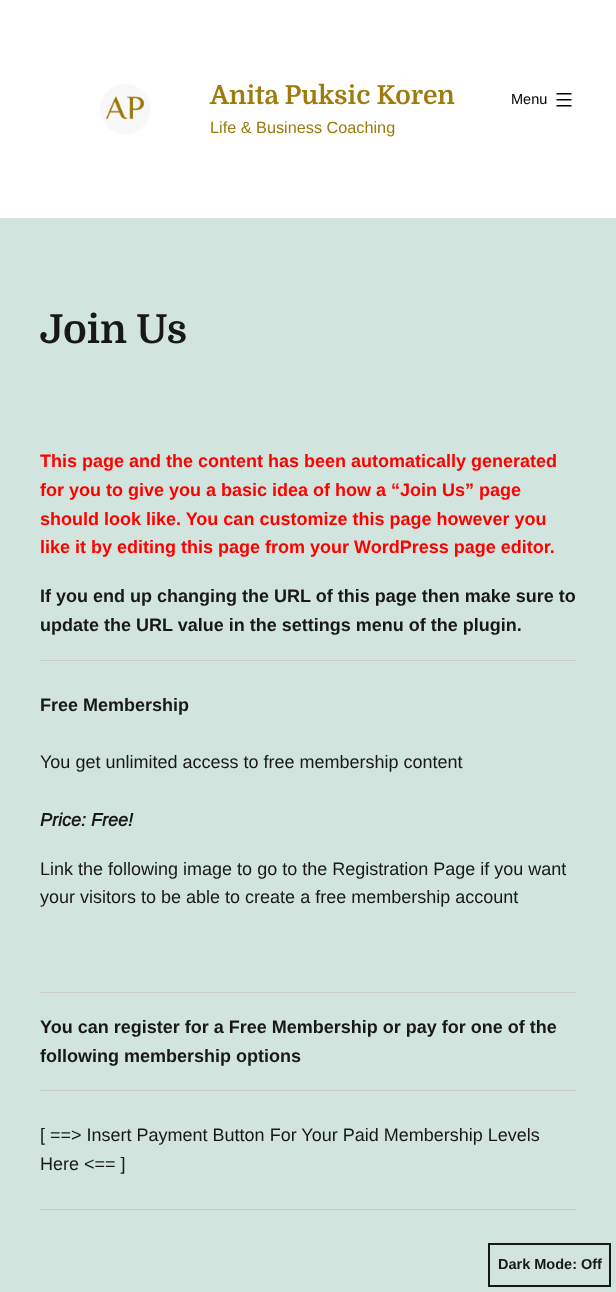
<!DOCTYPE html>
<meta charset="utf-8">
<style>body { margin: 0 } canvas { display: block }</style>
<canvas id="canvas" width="616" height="1292"></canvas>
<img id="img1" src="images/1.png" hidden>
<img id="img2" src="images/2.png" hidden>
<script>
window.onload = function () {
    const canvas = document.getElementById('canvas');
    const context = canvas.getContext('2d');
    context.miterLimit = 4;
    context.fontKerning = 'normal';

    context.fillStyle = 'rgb(209, 228, 221)';
    context.fillRect(0, 0, 616, 1292);
    context.fillStyle = 'rgb(255, 255, 255)';
    context.fillRect(0, 0, 616, 218);
    context.drawImage(document.getElementById('img1'), 100, 84, 50, 50);
    context.drawImage(document.getElementById('img2'), 556, 93, 16, 14);
    context.fillStyle = 'rgb(204, 204, 204)';
    context.fillRect(40, 660, 536, 1);
    context.fillRect(40, 992, 536, 1);
    context.fillRect(40, 1090, 536, 1);
    context.fillRect(40, 1209, 536, 1);
    context.strokeStyle = 'rgb(24, 24, 26)';
    context.lineWidth = 2;
    context.strokeRect(489, 1244, 121, 42);
    context.font = 'bold 26px Domine';
    context.fillStyle = 'rgb(157, 123, 12)';
    context.fillText('Anita Puksic Koren', 210, 104);
    context.font = '16.25px Arimo';
    context.fillText('Life & Business Coaching', 210, 133);
    context.font = '14.5px Arimo';
    context.fillStyle = 'rgb(0, 0, 0)';
    context.fillText('Menu', 511, 104);
    context.font = 'bold 40px Domine';
    context.fillStyle = 'rgb(24, 24, 26)';
    context.fillText('Join Us', 40, 343);
    context.font = 'bold 18px Arimo';
    context.fillStyle = 'rgb(255, 0, 0)';
    context.fillText('This page and the content has been automatically generated', 40, 467);
    context.fillText('for you to give you a basic idea of how a “Join Us” page', 40, 496);
    context.fillText('should look like. You can customize this page however you', 40, 525);
    context.fillText('like it by editing this page from your WordPress page editor.', 40, 553);
    context.fillStyle = 'rgb(24, 24, 26)';
    context.fillText('If you end up changing the URL of this page then make sure to', 40, 602);
    context.fillText('update the URL value in the settings menu of the plugin.', 40, 631);
    context.fillText('Free Membership', 40, 711);
    context.font = '18px Arimo';
    context.fillText('You get unlimited access to free membership content', 40, 768);
    context.font = 'italic bold 18px Arimo';
    context.fillText('Price: Free!', 40, 826);
    context.font = '18px Arimo';
    context.fillText('Link the following image to go to the Registration Page if you want', 40, 875);
    context.fillText('your visitors to be able to create a free membership account', 40, 903);
    context.font = 'bold 18px Arimo';
    context.fillText('You can register for a Free Membership or pay for one of the', 40, 1033);
    context.fillText('following membership options', 40, 1062);
    context.font = '18px Arimo';
    context.fillText('[ ==> Insert Payment Button For Your Paid Membership Levels', 40, 1141);
    context.fillText('Here <== ]', 40, 1170);
    context.font = 'bold 14.5px Arimo';
    context.fillText('Dark Mode:', 498, 1269);
    context.fillText('Off', 581, 1269);
};
</script>
